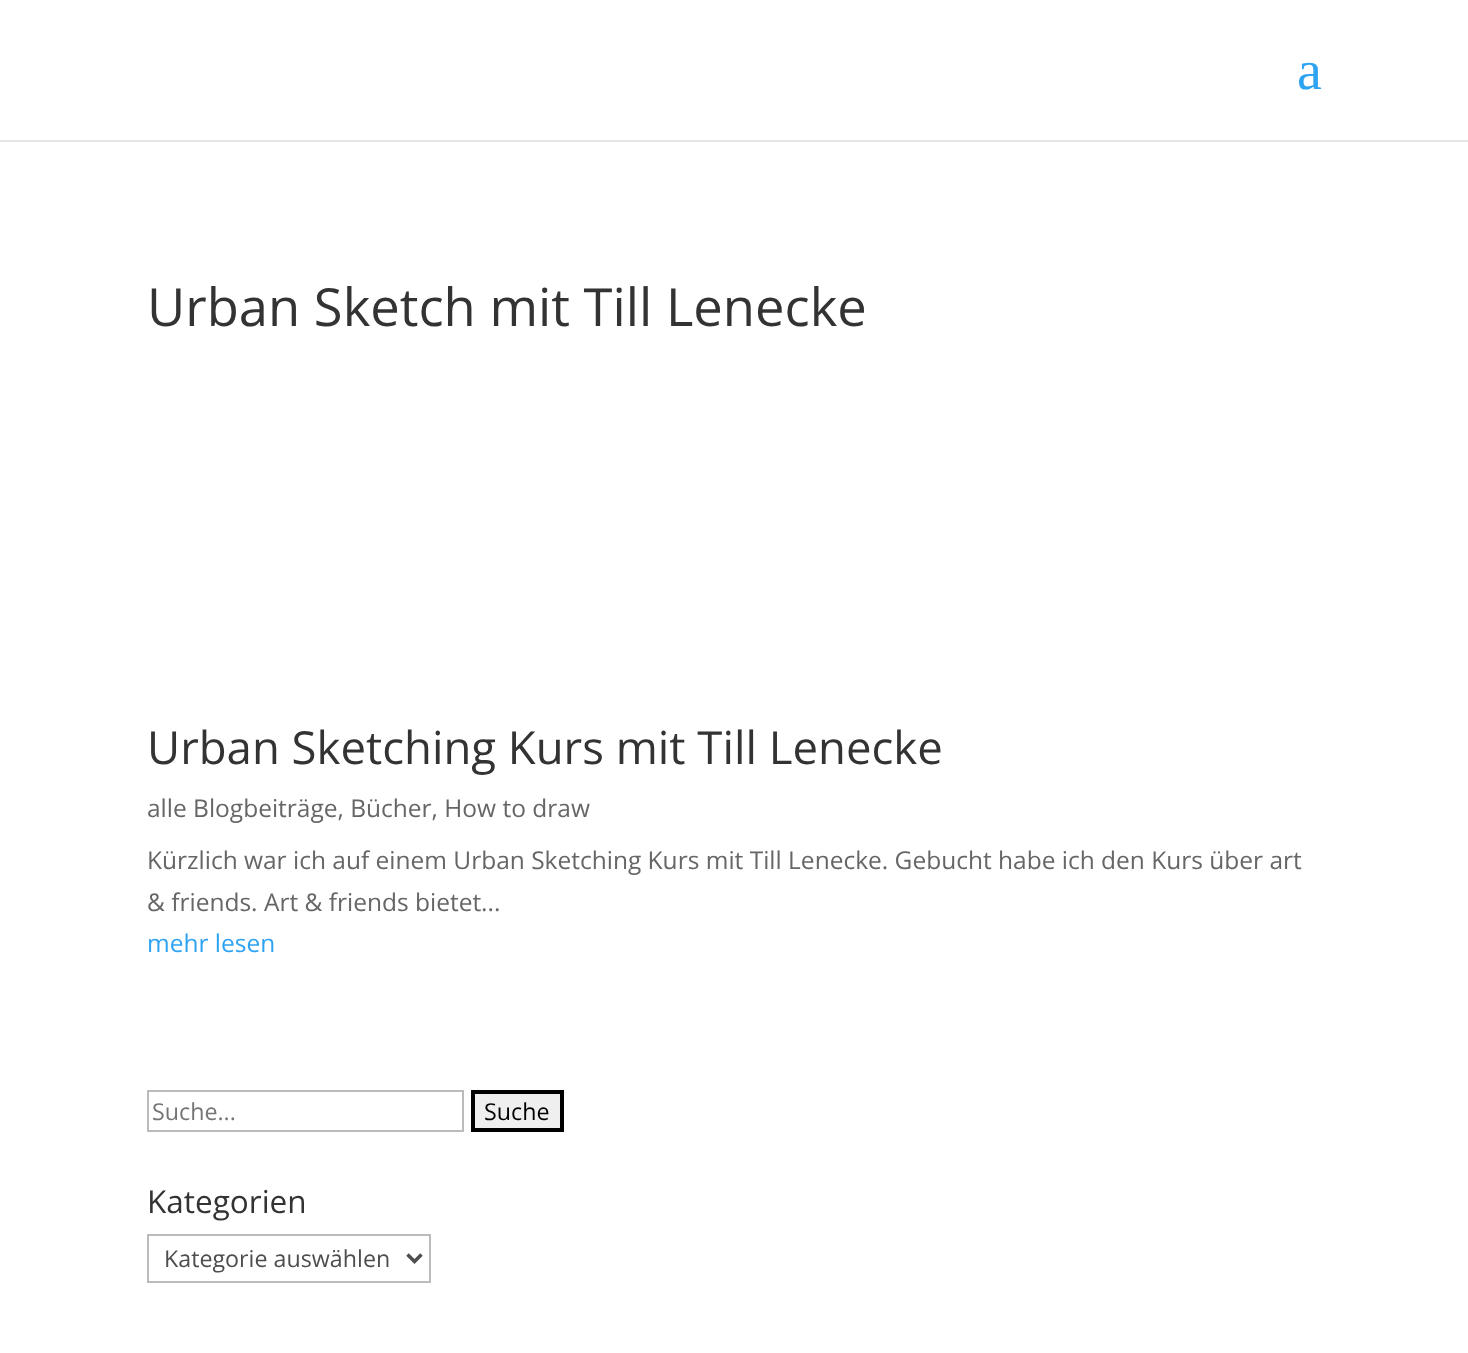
<!DOCTYPE html>
<meta charset="utf-8">
<style>body { margin: 0 } canvas { display: block }</style>
<canvas id="canvas" width="1468" height="1353"></canvas>
<script>
window.onload = function () {
    const canvas = document.getElementById('canvas');
    const context = canvas.getContext('2d');
    context.miterLimit = 4;
    context.fontKerning = 'normal';

    context.fillStyle = 'rgb(255, 255, 255)';
    context.fillRect(0, 0, 1468, 1353);
    context.fillStyle = 'rgb(230, 230, 230)';
    context.fillRect(0, 140, 1468, 2);
    context.strokeStyle = 'rgb(187, 187, 187)';
    context.lineWidth = 2;
    context.strokeRect(148, 1091, 315, 40);
    context.fillStyle = 'rgb(239, 239, 239)';
    context.beginPath();
    context.rect(473, 1092, 89, 38);
    context.fill();
    context.strokeStyle = 'rgb(0, 0, 0)';
    context.lineWidth = 4;
    context.stroke();
    context.strokeStyle = 'rgb(187, 187, 187)';
    context.lineWidth = 2;
    context.strokeRect(148, 1235, 282, 47);
    context.beginPath();
    context.moveTo(407.5, 1254.5);
    context.lineTo(414.5, 1261.5);
    context.lineTo(421.5, 1254.5);
    context.strokeStyle = 'rgb(78, 78, 78)';
    context.lineWidth = 3.5;
    context.stroke();
    context.font = '56px Liberation Serif';
    context.fillStyle = 'rgb(46, 163, 242)';
    context.fillText('a', 1297, 89);
    context.font = '52.5px Open Sans';
    context.fillStyle = 'rgb(51, 51, 51)';
    context.fillText('Urban Sketch mit Till Lenecke', 147, 326);
    context.font = '45.5px Open Sans';
    context.fillText('Urban Sketching Kurs mit Till Lenecke', 147, 764);
    context.font = '24.5px Open Sans';
    context.fillStyle = 'rgb(102, 102, 102)';
    context.fillText('alle Blogbeiträge, Bücher, How to draw', 147, 817);
    context.fillText('Kürzlich war ich auf einem Urban Sketching Kurs mit Till Lenecke. Gebucht habe ich den Kurs über art', 147, 869);
    context.fillText('& friends. Art & friends bietet...', 147, 911);
    context.fillStyle = 'rgb(46, 163, 242)';
    context.fillText('mehr lesen', 147, 952);
    context.font = '23.25px Open Sans';
    context.fillStyle = 'rgb(117, 117, 117)';
    context.fillText('Suche...', 152, 1120);
    context.fillStyle = 'rgb(0, 0, 0)';
    context.fillText('Suche', 484, 1120);
    context.font = '31.5px Open Sans';
    context.fillStyle = 'rgb(51, 51, 51)';
    context.fillText('Kategorien', 147, 1213);
    context.font = '23.25px Open Sans';
    context.fillStyle = 'rgb(78, 78, 78)';
    context.fillText('Kategorie auswählen', 164, 1267);
};
</script>
